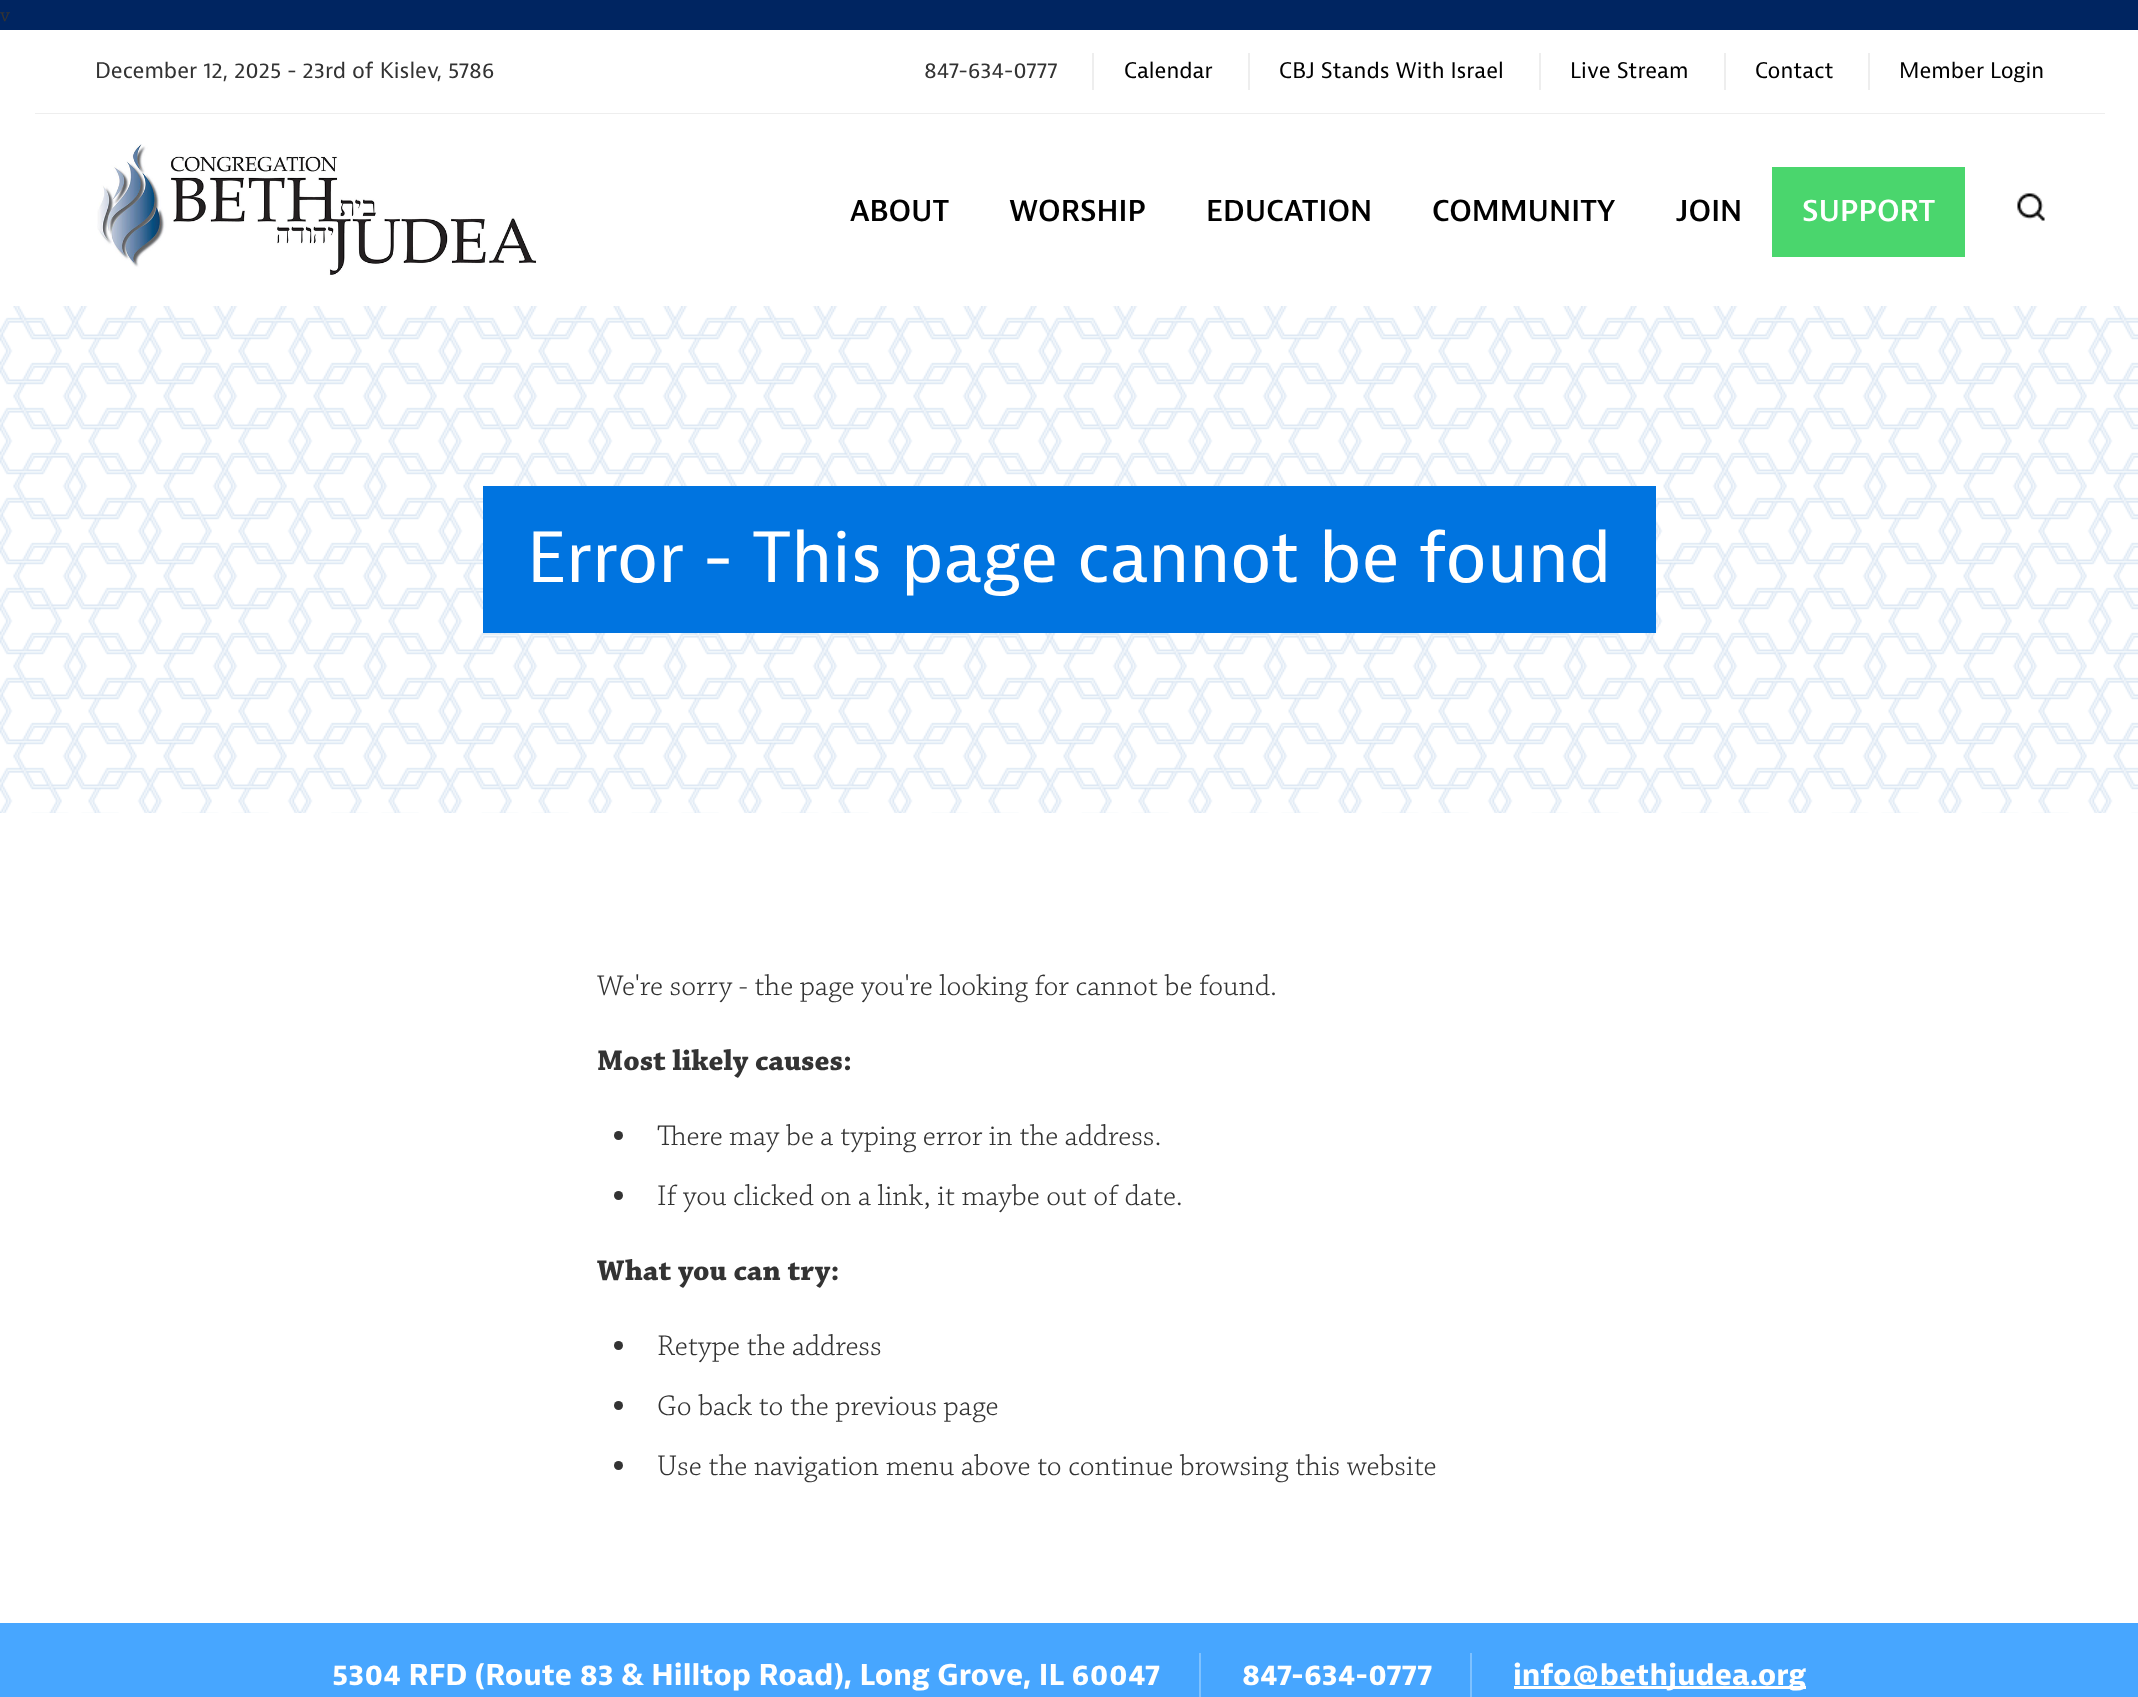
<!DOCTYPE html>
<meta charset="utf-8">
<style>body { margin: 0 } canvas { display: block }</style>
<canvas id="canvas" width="2138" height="1697"></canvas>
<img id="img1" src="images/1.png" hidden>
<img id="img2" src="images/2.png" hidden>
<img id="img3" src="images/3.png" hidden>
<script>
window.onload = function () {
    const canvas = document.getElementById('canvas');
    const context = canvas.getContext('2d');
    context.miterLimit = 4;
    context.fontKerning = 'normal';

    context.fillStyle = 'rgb(0, 37, 97)';
    context.fillRect(0, 0, 2138, 1697);
    context.fillStyle = 'rgb(255, 255, 255)';
    context.fillRect(0, 30, 2138, 1593);
    context.fillStyle = 'rgb(238, 238, 238)';
    context.fillRect(35, 113, 2070, 1);
    context.fillRect(1092, 53, 2, 37);
    context.fillRect(1248, 53, 2, 37);
    context.fillRect(1539, 53, 2, 37);
    context.fillRect(1724, 53, 2, 37);
    context.fillRect(1868, 53, 2, 37);
    context.drawImage(document.getElementById('img1'), 97, 144, 440, 131);
    context.fillStyle = 'rgb(74, 214, 109)';
    context.fillRect(1772, 167, 193, 90);
    context.drawImage(document.getElementById('img2'), 2017, 193, 28, 28);
    context.drawImage(document.getElementById('img3'), 0, 306, 2138, 507);
    context.fillStyle = 'rgb(0, 116, 224)';
    context.fillRect(483, 486, 1173, 147);
    context.fillStyle = 'rgb(51, 51, 51)';
    context.beginPath();
    context.arc(618.5, 1135.5, 4.5, 0, 2 * Math.PI);
    context.fill();
    context.beginPath();
    context.arc(618.5, 1195.5, 4.5, 0, 2 * Math.PI);
    context.fill();
    context.beginPath();
    context.arc(618.5, 1345.5, 4.5, 0, 2 * Math.PI);
    context.fill();
    context.beginPath();
    context.arc(618.5, 1405.5, 4.5, 0, 2 * Math.PI);
    context.fill();
    context.beginPath();
    context.arc(618.5, 1465.5, 4.5, 0, 2 * Math.PI);
    context.fill();
    context.fillStyle = 'rgb(71, 166, 255)';
    context.fillRect(0, 1623, 2138, 74);
    context.fillStyle = 'rgb(126, 193, 255)';
    context.fillRect(1199, 1653, 2, 44);
    context.fillRect(1470, 1653, 2, 44);
    context.fillStyle = 'rgb(255, 255, 255)';
    context.fillRect(1514, 1686, 292, 3);
    context.font = '21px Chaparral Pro';
    context.fillStyle = 'rgb(51, 51, 51)';
    context.fillText('v', 0, 21);
    context.font = '22.5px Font';
    context.fillText('December 12, 2025 - 23rd of Kislev, 5786', 95, 78);
    context.fillText('847-634-0777', 924, 78);
    context.fillStyle = 'rgb(0, 0, 0)';
    context.fillText('Calendar', 1124, 78);
    context.fillText('CBJ Stands With Israel', 1279, 78);
    context.fillText('Live Stream', 1570, 78);
    context.fillText('Contact', 1755, 78);
    context.fillText('Member Login', 1899, 78);
    context.font = '600 30px Font';
    context.fillText('ABOUT', 850, 221);
    context.fillText('WORSHIP', 1009, 221);
    context.fillText('EDUCATION', 1206, 221);
    context.fillText('COMMUNITY', 1432, 221);
    context.fillText('JOIN', 1676, 221);
    context.fillStyle = 'rgb(255, 255, 255)';
    context.fillText('SUPPORT', 1802, 221);
    context.font = '72px Font';
    context.fillText('Error - This page cannot be found', 527, 582);
    context.font = '300 30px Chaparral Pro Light';
    context.fillStyle = 'rgb(51, 51, 51)';
    context.fillText('We\'re sorry - the page you\'re looking for cannot be found.', 597, 995);
    context.font = 'bold 30px Chaparral Pro';
    context.fillText('Most likely causes:', 597, 1070);
    context.font = '300 30px Chaparral Pro Light';
    context.fillText('There may be a typing error in the address.', 657, 1145);
    context.fillText('If you clicked on a link, it maybe out of date.', 657, 1205);
    context.font = 'bold 30px Chaparral Pro';
    context.fillText('What you can try:', 597, 1280);
    context.font = '300 30px Chaparral Pro Light';
    context.fillText('Retype the address', 657, 1355);
    context.fillText('Go back to the previous page', 657, 1415);
    context.fillText('Use the navigation menu above to continue browsing this website', 657, 1475);
    context.font = 'bold 30px Font';
    context.fillStyle = 'rgb(255, 255, 255)';
    context.fillText('5304 RFD (Route 83 & Hilltop Road), Long Grove, IL 60047', 332, 1685);
    context.fillText('847-634-0777', 1242, 1685);
    context.fillText('info@bethjudea.org', 1513, 1685);
};
</script>
